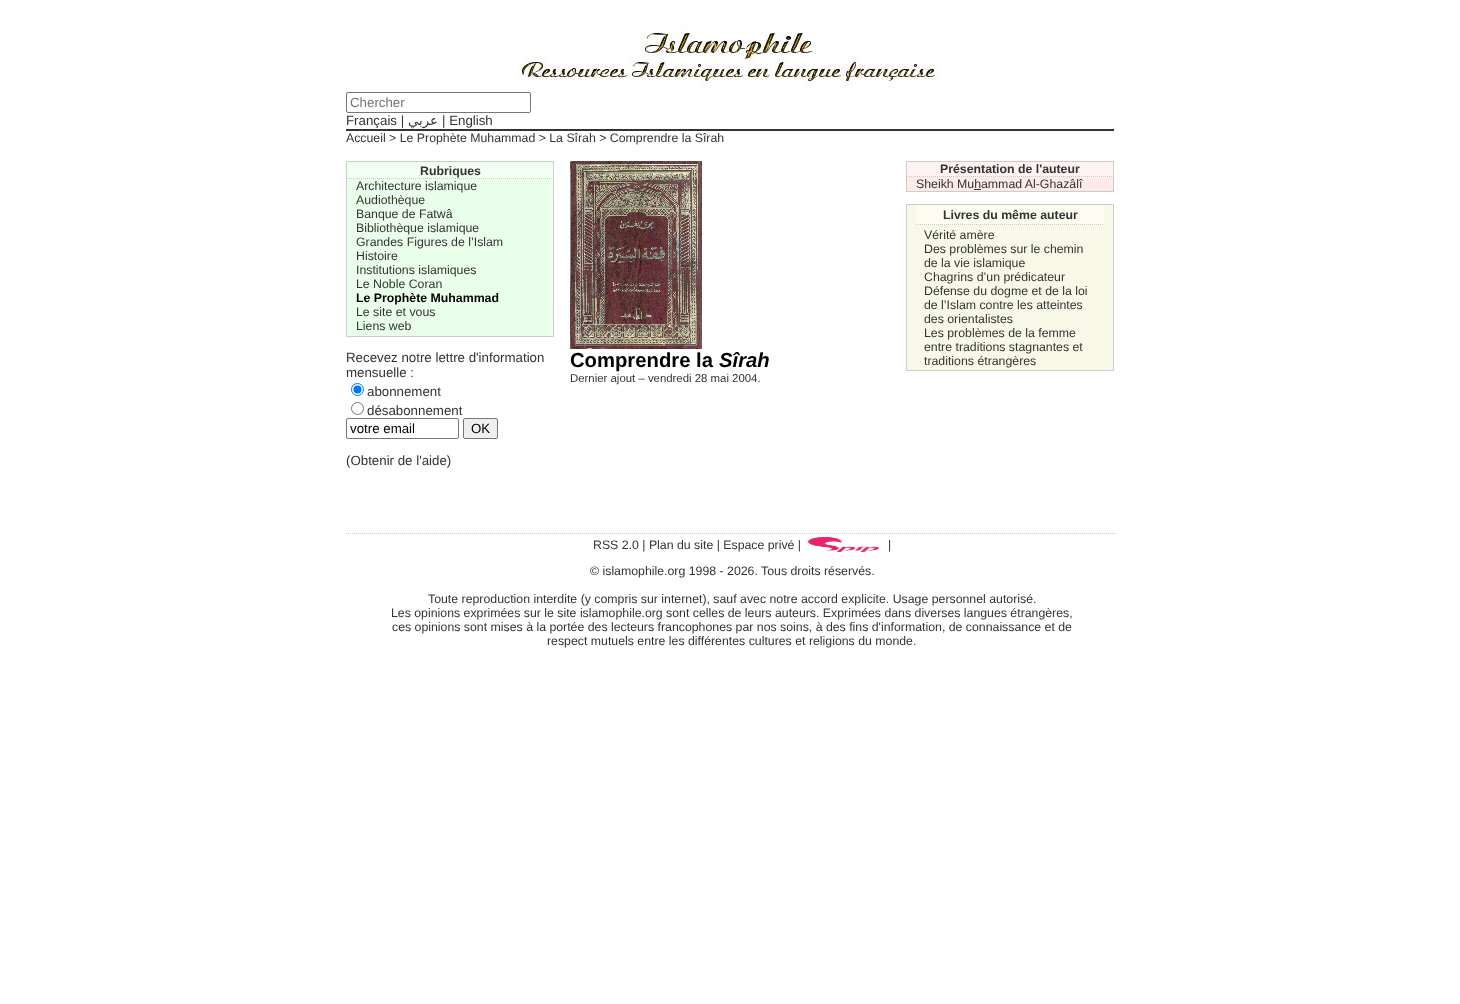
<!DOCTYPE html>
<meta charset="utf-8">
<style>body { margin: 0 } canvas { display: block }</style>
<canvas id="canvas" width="1460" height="1004"></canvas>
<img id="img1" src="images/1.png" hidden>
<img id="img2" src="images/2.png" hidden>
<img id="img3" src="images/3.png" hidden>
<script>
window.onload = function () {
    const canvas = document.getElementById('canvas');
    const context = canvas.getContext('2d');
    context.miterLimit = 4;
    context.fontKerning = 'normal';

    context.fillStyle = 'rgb(255, 255, 255)';
    context.fillRect(0, 0, 1460, 1004);
    context.drawImage(document.getElementById('img1'), 517, 24, 423, 64);
    context.beginPath();
    context.roundRect(346.5, 92.5, 184, 20, 1.5);
    context.strokeStyle = 'rgb(118, 118, 118)';
    context.stroke();
    context.fillStyle = 'rgb(51, 51, 51)';
    context.fillRect(346, 129, 768, 2);
    context.fillStyle = 'rgb(234, 255, 234)';
    context.beginPath();
    context.rect(346.5, 161.5, 207, 175);
    context.fill();
    context.strokeStyle = 'rgb(204, 204, 204)';
    context.stroke();
    context.fillStyle = 'rgb(242, 255, 242)';
    context.fillRect(347, 164, 206, 15);
    context.beginPath();
    context.moveTo(347, 178.5);
    context.lineTo(553, 178.5);
    context.setLineDash([1, 1]);
    context.stroke();
    context.beginPath();
    context.arc(357.5, 389.5, 6, 0, 2 * Math.PI);
    context.strokeStyle = 'rgb(0, 117, 255)';
    context.setLineDash([]);
    context.stroke();
    context.fillStyle = 'rgb(0, 117, 255)';
    context.beginPath();
    context.arc(357.5, 389.5, 4, 0, 2 * Math.PI);
    context.fill();
    context.beginPath();
    context.arc(357.5, 408.5, 6, 0, 2 * Math.PI);
    context.strokeStyle = 'rgb(118, 118, 118)';
    context.stroke();
    context.beginPath();
    context.roundRect(346.5, 418.5, 112, 20, 1.5);
    context.stroke();
    context.fillStyle = 'rgb(239, 239, 239)';
    context.beginPath();
    context.roundRect(463.5, 418.5, 34, 20, 1.5);
    context.fill();
    context.stroke();
    context.drawImage(document.getElementById('img2'), 570, 161, 132, 188);
    context.fillStyle = 'rgb(255, 234, 234)';
    context.fillRect(907, 177, 206, 14);
    context.strokeStyle = 'rgb(204, 204, 204)';
    context.strokeRect(906.5, 161.5, 207, 30);
    context.fillStyle = 'rgb(255, 242, 242)';
    context.fillRect(907, 162, 206, 15);
    context.beginPath();
    context.moveTo(907, 176.5);
    context.lineTo(1113, 176.5);
    context.setLineDash([1, 1]);
    context.stroke();
    context.fillStyle = 'rgb(51, 51, 51)';
    context.fillRect(974, 189, 7, 1);
    context.fillStyle = 'rgb(248, 248, 232)';
    context.beginPath();
    context.rect(906.5, 204.5, 207, 166);
    context.fill();
    context.setLineDash([]);
    context.stroke();
    context.fillStyle = 'rgb(252, 252, 240)';
    context.fillRect(916, 205, 188, 20);
    context.beginPath();
    context.moveTo(916, 224.5);
    context.lineTo(1104, 224.5);
    context.setLineDash([1, 1]);
    context.stroke();
    context.beginPath();
    context.moveTo(346, 533.5);
    context.lineTo(1118, 533.5);
    context.stroke();
    context.drawImage(document.getElementById('img3'), 807, 537, 72, 15);
    context.font = '13.3px Liberation Sans';
    context.fillStyle = 'rgb(117, 117, 117)';
    context.fillText('Chercher', 350, 107);
    context.fillStyle = 'rgb(51, 51, 51)';
    context.fillText('Français |', 346, 125);
    context.direction = 'rtl';
    context.font = '13.3px DejaVu Sans';
    context.fillText('عربي', 438, 125);
    context.direction = 'ltr';
    context.font = '13.3px Liberation Sans';
    context.fillText('| English', 442, 125);
    context.font = '12.32px Liberation Sans';
    context.fillText('Accueil > Le Prophète Muhammad > La Sîrah > Comprendre la Sîrah', 346, 142);
    context.font = 'bold 12.32px Liberation Sans';
    context.fillText('Rubriques', 420, 175);
    context.font = '12.32px Liberation Sans';
    context.fillText('Architecture islamique', 356, 190);
    context.fillText('Audiothèque', 356, 204);
    context.fillText('Banque de Fatwâ', 356, 218);
    context.fillText('Bibliothèque islamique', 356, 232);
    context.fillText('Grandes Figures de l’Islam', 356, 246);
    context.fillText('Histoire', 356, 260);
    context.fillText('Institutions islamiques', 356, 274);
    context.fillText('Le Noble Coran', 356, 288);
    context.font = 'bold 12.32px Liberation Sans';
    context.fillStyle = 'rgb(0, 0, 0)';
    context.fillText('Le Prophète Muhammad', 356, 302);
    context.font = '12.32px Liberation Sans';
    context.fillStyle = 'rgb(51, 51, 51)';
    context.fillText('Le site et vous', 356, 316);
    context.fillText('Liens web', 356, 330);
    context.font = '13.3px Liberation Sans';
    context.fillText('Recevez notre lettre d\'information', 346, 362);
    context.fillText('mensuelle :', 346, 377);
    context.fillText('abonnement', 367, 396);
    context.fillText('désabonnement', 367, 415);
    context.fillStyle = 'rgb(0, 0, 0)';
    context.fillText('votre email', 350, 433);
    context.fillText('OK', 471, 433);
    context.fillStyle = 'rgb(51, 51, 51)';
    context.fillText('(Obtenir de l\'aide)', 346, 465);
    context.font = 'bold 20.25px Liberation Sans';
    context.fillStyle = 'rgb(0, 0, 0)';
    context.fillText('Comprendre la', 570, 367);
    context.font = 'italic bold 20.25px Liberation Sans';
    context.fillText('Sîrah', 719, 367);
    context.font = '11.4px Liberation Sans';
    context.fillStyle = 'rgb(51, 51, 51)';
    context.fillText('Dernier ajout – vendredi 28 mai 2004.', 570, 382);
    context.font = 'bold 12.32px Liberation Sans';
    context.fillText('Présentation de l\'auteur', 940, 173);
    context.font = '12.32px Liberation Sans';
    context.fillText('Sheikh Muhammad Al-Ghazâlî', 916, 188);
    context.font = 'bold 12.32px Liberation Sans';
    context.fillText('Livres du même auteur', 943, 219);
    context.font = '12.32px Liberation Sans';
    context.fillText('Vérité amère', 924, 239);
    context.fillText('Des problèmes sur le chemin', 924, 253);
    context.fillText('de la vie islamique', 924, 267);
    context.fillText('Chagrins d’un prédicateur', 924, 281);
    context.fillText('Défense du dogme et de la loi', 924, 295);
    context.fillText('de l’Islam contre les atteintes', 924, 309);
    context.fillText('des orientalistes', 924, 323);
    context.fillText('Les problèmes de la femme', 924, 337);
    context.fillText('entre traditions stagnantes et', 924, 351);
    context.fillText('traditions étrangères', 924, 365);
    context.fillText('RSS 2.0 | Plan du site | Espace privé |', 593, 549);
    context.fillText('|', 888, 549);
    context.fillText('© islamophile.org 1998 - 2026. Tous droits réservés.', 590, 575);
    context.fillText('Toute reproduction interdite (y compris sur internet), sauf avec notre accord explicite. Usage personnel autorisé.', 428, 603);
    context.fillText('Les opinions exprimées sur le site islamophile.org sont celles de leurs auteurs. Exprimées dans diverses langues étrangères,', 391, 617);
    context.fillText('ces opinions sont mises à la portée des lecteurs francophones par nos soins, à des fins d\'information, de connaissance et de', 392, 631);
    context.fillText('respect mutuels entre les différentes cultures et religions du monde.', 547, 645);
};
</script>
